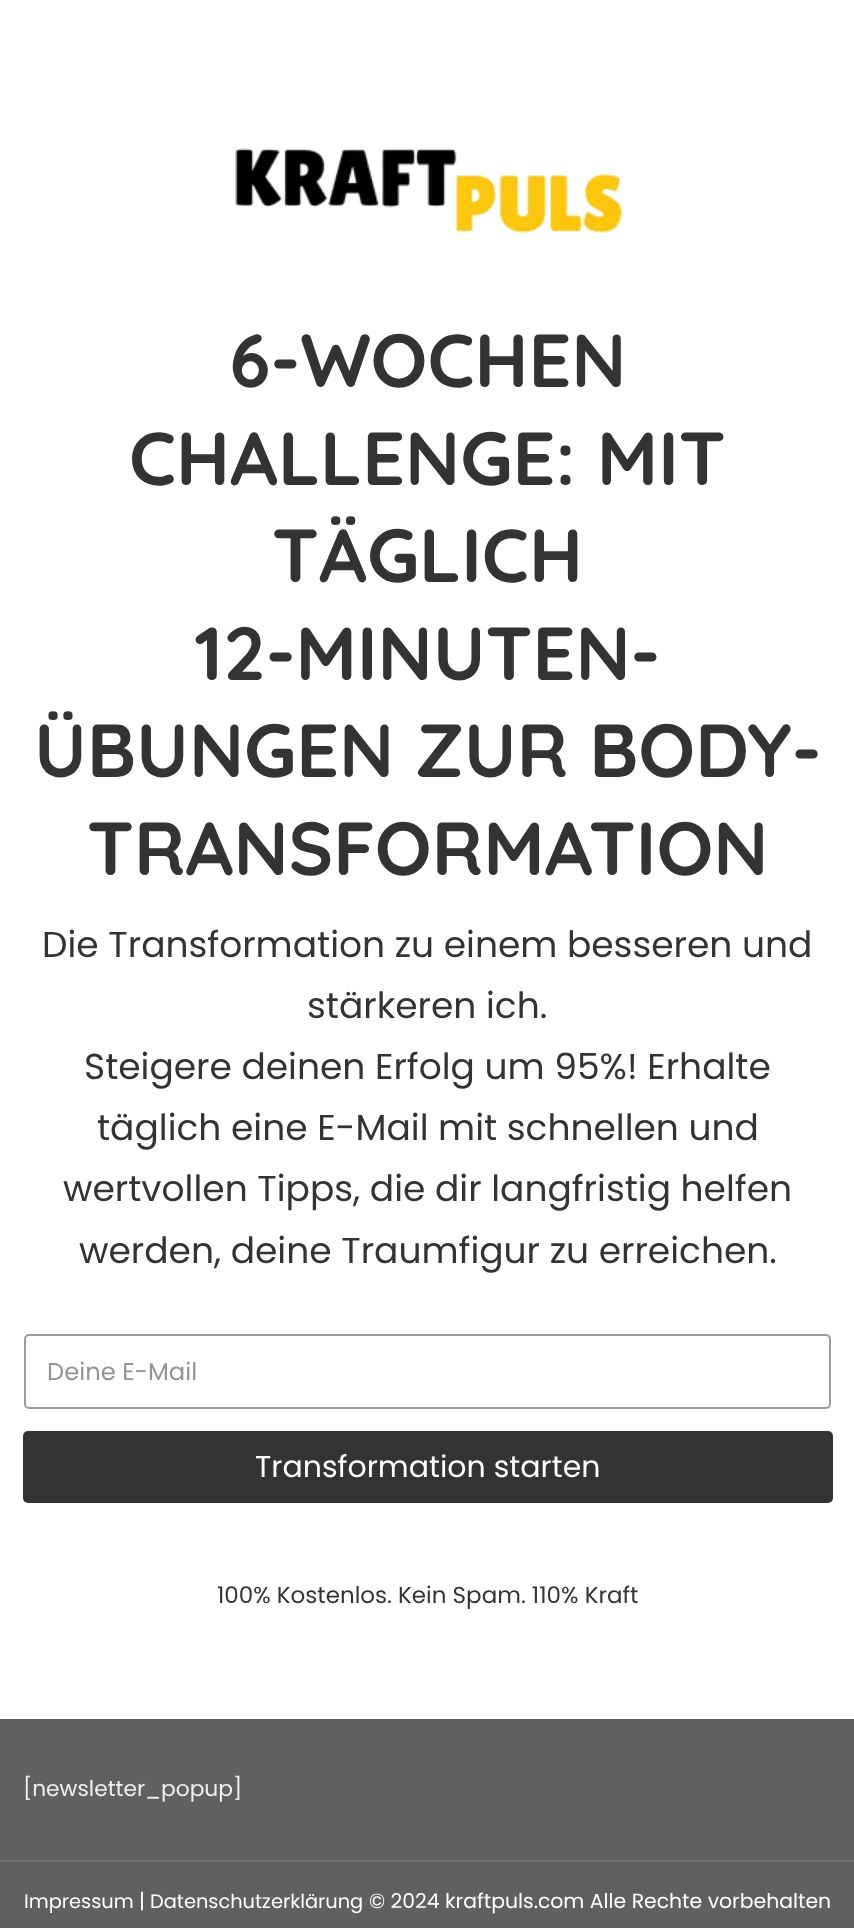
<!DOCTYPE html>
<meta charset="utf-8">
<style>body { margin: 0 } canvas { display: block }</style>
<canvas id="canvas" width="854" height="1928"></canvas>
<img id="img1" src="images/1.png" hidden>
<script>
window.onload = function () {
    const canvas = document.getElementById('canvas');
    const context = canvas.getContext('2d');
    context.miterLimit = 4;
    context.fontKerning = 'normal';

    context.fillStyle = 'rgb(255, 255, 255)';
    context.fillRect(0, 0, 854, 1928);
    context.drawImage(document.getElementById('img1'), 235, 148, 388, 85);
    context.beginPath();
    context.roundRect(25, 1335, 805, 73, 4);
    context.strokeStyle = 'rgb(156, 156, 156)';
    context.lineWidth = 2;
    context.stroke();
    context.fillStyle = 'rgb(51, 51, 51)';
    context.beginPath();
    context.roundRect(23, 1431, 810, 72, 5);
    context.fill();
    context.fillStyle = 'rgb(96, 96, 96)';
    context.fillRect(0, 1719, 854, 209);
    context.fillStyle = 'rgb(112, 112, 112)';
    context.fillRect(0, 1860, 854, 2);
    context.font = 'bold 75px Quicksand';
    context.fillStyle = 'rgb(51, 51, 51)';
    context.fillText('6-WOCHEN', 229, 387);
    context.fillText('CHALLENGE: MIT', 129, 485);
    context.fillText('TÄGLICH', 272, 582);
    context.fillText('12-MINUTEN-', 194, 680);
    context.fillText('ÜBUNGEN ZUR BODY-', 34, 777);
    context.fillText('TRANSFORMATION', 87, 875);
    context.font = '36px Poppins';
    context.fillText('Die Transformation zu einem besseren und', 42, 957);
    context.fillText('stärkeren ich.', 307, 1018);
    context.fillText('Steigere deinen Erfolg um 95%! Erhalte', 84, 1079);
    context.fillText('täglich eine E-Mail mit schnellen und', 97, 1140);
    context.fillText('wertvollen Tipps, die dir langfristig helfen', 63, 1201);
    context.fillText('werden, deine Traumfigur zu erreichen.', 79, 1263);
    context.font = '24.25px Poppins';
    context.fillStyle = 'rgb(148, 148, 148)';
    context.fillText('Deine E-Mail', 47, 1380);
    context.font = '30px Poppins';
    context.fillStyle = 'rgb(255, 255, 255)';
    context.fillText('Transformation starten', 255, 1477);
    context.font = '23px Poppins';
    context.fillStyle = 'rgb(51, 51, 51)';
    context.fillText('100% Kostenlos. Kein Spam. 110% Kraft', 217, 1603);
    context.font = '21.75px Poppins';
    context.fillStyle = 'rgb(239, 239, 239)';
    context.fillText('[newsletter_popup]', 23, 1796);
    context.font = '19.4px Poppins';
    context.fillStyle = 'rgb(255, 255, 255)';
    context.fillText('Impressum', 24, 1908);
    context.font = '20.4px Poppins';
    context.fillText('|', 139, 1908);
    context.font = '19.4px Poppins';
    context.fillText('Datenschutzerklärung', 150, 1908);
    context.font = '20.4px Poppins';
    context.fillText('© 2024 kraftpuls.com Alle Rechte vorbehalten', 369, 1908);
};
</script>
